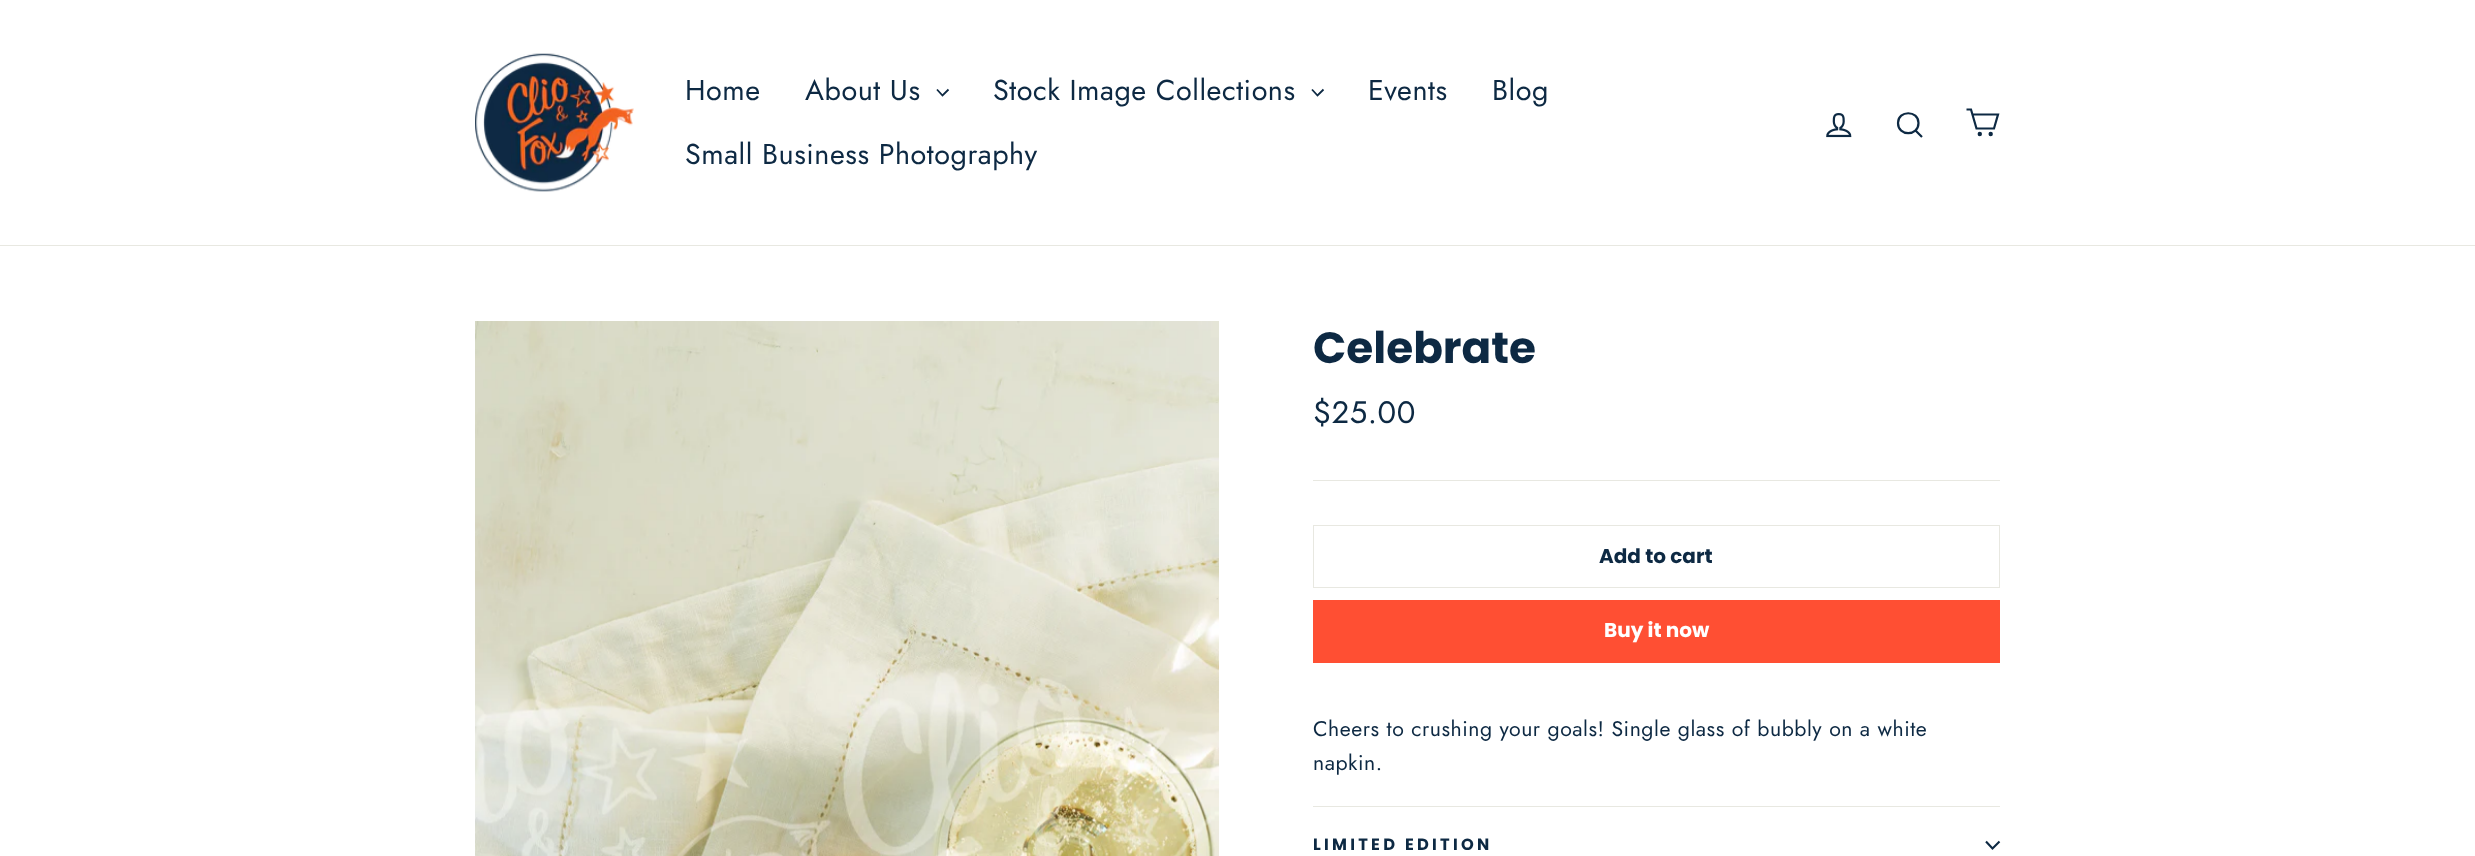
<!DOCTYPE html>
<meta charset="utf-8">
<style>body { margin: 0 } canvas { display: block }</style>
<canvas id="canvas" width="2475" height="856"></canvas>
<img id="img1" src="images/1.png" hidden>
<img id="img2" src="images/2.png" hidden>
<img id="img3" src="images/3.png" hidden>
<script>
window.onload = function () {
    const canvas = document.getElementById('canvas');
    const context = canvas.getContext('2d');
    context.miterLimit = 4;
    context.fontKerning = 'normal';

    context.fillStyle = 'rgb(255, 255, 255)';
    context.fillRect(0, 0, 2475, 856);
    context.fillStyle = 'rgb(232, 232, 225)';
    context.fillRect(0, 245, 2475, 1);
    context.drawImage(document.getElementById('img1'), 475, 53, 159, 139);
    context.beginPath();
    context.moveTo(937, 89.5);
    context.lineTo(942.5, 95.5);
    context.lineTo(948.5, 89.5);
    context.strokeStyle = 'rgb(13, 41, 67)';
    context.lineWidth = 1.8;
    context.stroke();
    context.beginPath();
    context.moveTo(1312, 89.5);
    context.lineTo(1317.5, 95.5);
    context.lineTo(1323.5, 89.5);
    context.stroke();
    context.drawImage(document.getElementById('img2'), 1826, 113, 26, 25);
    context.beginPath();
    context.moveTo(1918.5, 123);
    context.bezierCurveTo(1918.5, 136.5, 1898, 136.5, 1898, 123);
    context.bezierCurveTo(1898, 110, 1918.5, 110, 1918.5, 123);
    context.closePath();
    context.moveTo(1922, 137);
    context.lineTo(1915.5, 130.5);
    context.lineWidth = 2.2;
    context.stroke();
    context.beginPath();
    context.moveTo(1972.5, 114.5);
    context.lineTo(1998, 114.5);
    context.lineTo(1994, 128.5);
    context.lineTo(1976.5, 128.5);
    context.lineTo(1971, 109.5);
    context.lineTo(1966.5, 109.5);
    context.stroke();
    context.beginPath();
    context.arc(1979.8, 134, 1.1, 0, 2 * Math.PI);
    context.stroke();
    context.beginPath();
    context.arc(1990.7, 134, 1.1, 0, 2 * Math.PI);
    context.stroke();
    context.drawImage(document.getElementById('img3'), 475, 321, 744, 535);
    context.fillRect(1313, 480, 687, 1);
    context.strokeStyle = 'rgb(232, 232, 225)';
    context.lineWidth = 1;
    context.strokeRect(1313.5, 525.5, 686, 62);
    context.fillStyle = 'rgb(255, 79, 51)';
    context.fillRect(1313, 600, 687, 63);
    context.fillStyle = 'rgb(232, 232, 225)';
    context.fillRect(1313, 806, 687, 1);
    context.beginPath();
    context.moveTo(1986, 841.5);
    context.lineTo(1992.5, 848.5);
    context.lineTo(1999.5, 841.5);
    context.strokeStyle = 'rgb(13, 41, 67)';
    context.lineWidth = 2.1;
    context.stroke();
    context.letterSpacing = '0.53px';
    context.font = '28.75px Jost';
    context.fillStyle = 'rgb(13, 41, 67)';
    context.fillText('Home', 685, 100);
    context.fillText('About Us', 805, 100);
    context.fillText('Stock Image Collections', 993, 100);
    context.fillText('Events', 1368, 100);
    context.fillText('Blog', 1492, 100);
    context.fillText('Small Business Photography', 685, 164);
    context.letterSpacing = '0px';
    context.font = 'bold 43.75px Poppins';
    context.fillText('Celebrate', 1313, 363);
    context.letterSpacing = '0.53px';
    context.font = '31px Jost';
    context.fillText('$25.00', 1313, 423);
    context.letterSpacing = '0px';
    context.font = 'bold 20px Poppins';
    context.fillText('Add to cart', 1599, 563);
    context.fillStyle = 'rgb(255, 255, 255)';
    context.fillText('Buy it now', 1604, 637);
    context.letterSpacing = '0.53px';
    context.font = '21.25px Jost';
    context.fillStyle = 'rgb(13, 41, 67)';
    context.fillText('Cheers to crushing your goals! Single glass of bubbly on a white', 1313, 736);
    context.fillText('napkin.', 1313, 770);
    context.letterSpacing = '3.25px';
    context.font = 'bold 16.25px Poppins';
    context.fillText('LIMITED EDITION', 1313, 850);
};
</script>
